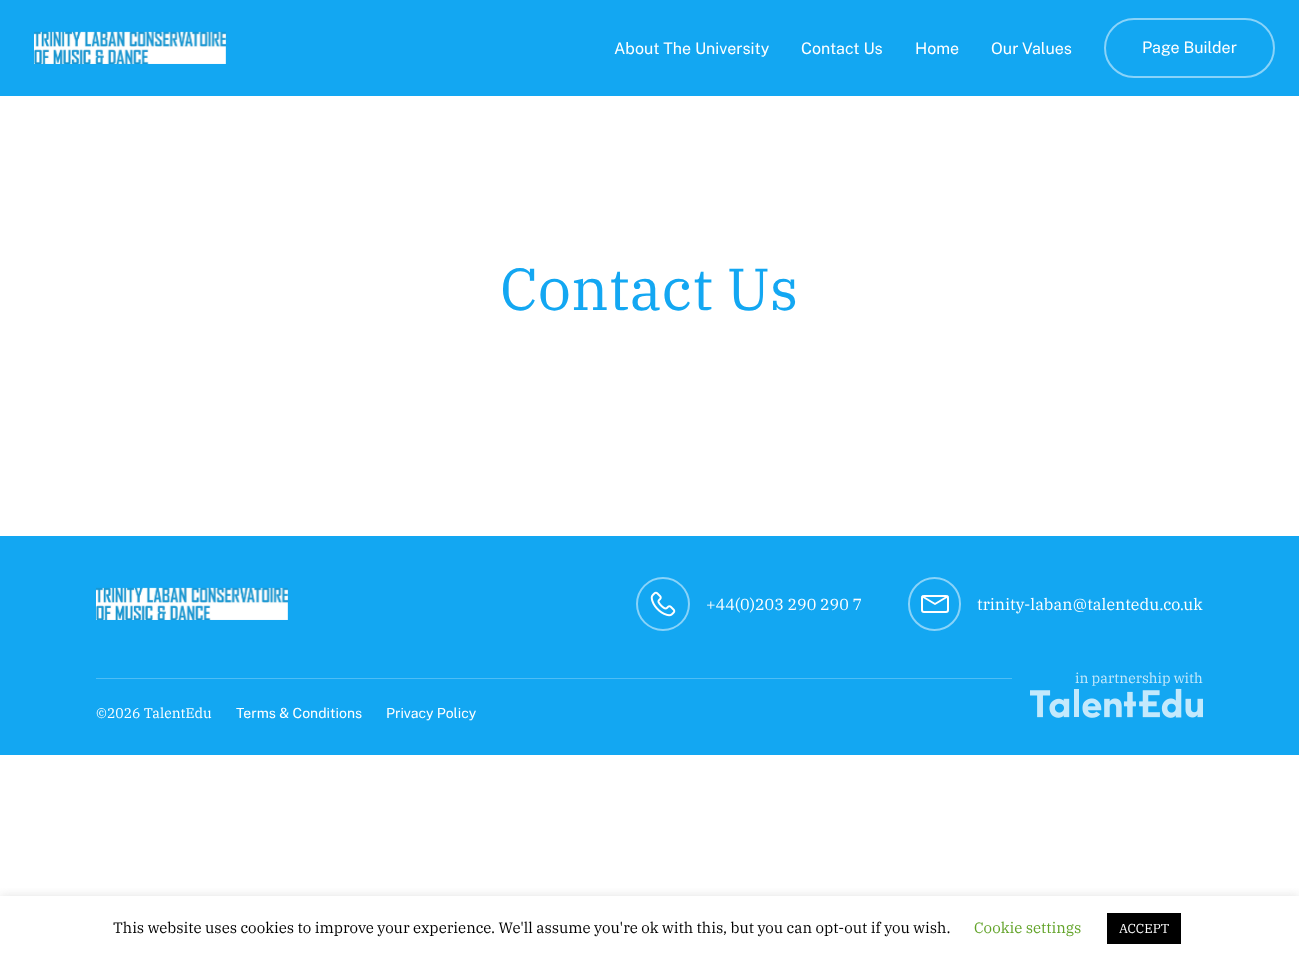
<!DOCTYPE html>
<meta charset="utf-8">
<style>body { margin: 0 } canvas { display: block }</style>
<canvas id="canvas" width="1299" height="961"></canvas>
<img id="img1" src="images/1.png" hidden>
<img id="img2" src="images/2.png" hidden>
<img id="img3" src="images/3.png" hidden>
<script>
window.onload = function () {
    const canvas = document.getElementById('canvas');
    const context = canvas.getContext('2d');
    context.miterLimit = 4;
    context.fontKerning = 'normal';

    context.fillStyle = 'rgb(255, 255, 255)';
    context.fillRect(0, 0, 1299, 961);
    context.fillStyle = 'rgb(19, 167, 242)';
    context.fillRect(0, 0, 1299, 96);
    context.drawImage(document.getElementById('img1'), 34, 31, 192, 33);
    context.beginPath();
    context.roundRect(1105, 19, 169, 58, 29);
    context.strokeStyle = 'rgb(137, 211, 249)';
    context.lineWidth = 2;
    context.stroke();
    context.fillRect(0, 536, 1299, 219);
    context.drawImage(document.getElementById('img1'), 96, 587, 192, 33);
    context.beginPath();
    context.arc(663, 604, 26, 0, 2 * Math.PI);
    context.stroke();
    context.drawImage(document.getElementById('img2'), 650, 591, 26, 26);
    context.beginPath();
    context.roundRect(909, 578, 51, 52, 25.5);
    context.stroke();
    context.beginPath();
    context.roundRect(922, 596, 26, 16, 2);
    context.strokeStyle = 'rgb(255, 255, 255)';
    context.stroke();
    context.beginPath();
    context.moveTo(947.5, 596.5);
    context.lineTo(935, 604);
    context.lineTo(922.5, 596.5);
    context.lineCap = 'round';
    context.lineJoin = 'round';
    context.stroke();
    context.drawImage(document.getElementById('img3'), 1030, 688, 173, 30);
    context.fillStyle = 'rgb(78, 189, 245)';
    context.fillRect(96, 678, 916, 1);
    context.save();
    context.beginPath();
    context.rect(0, 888, 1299, 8);
    context.clip();
    context.fillStyle = 'rgba(172, 171, 171, 0.3)';
    context.filter = 'blur(5px)';
    context.beginPath();
    context.rect(0, 895, 1299, 65);
    context.fill();
    context.filter = 'none';
    context.restore();
    context.fillStyle = 'rgb(0, 0, 0)';
    context.fillRect(1107, 913, 74, 31);
    context.font = '16px Public Sans';
    context.fillStyle = 'rgb(255, 255, 255)';
    context.fillText('About The University', 614, 54);
    context.fillText('Contact Us', 801, 54);
    context.fillText('Home', 915, 54);
    context.fillText('Our Values', 991, 54);
    context.fillText('Page Builder', 1142, 53);
    context.font = '59px IBM Plex Serif';
    context.fillStyle = 'rgb(19, 167, 242)';
    context.fillText('Contact Us', 500, 310);
    context.font = '16px IBM Plex Serif';
    context.fillStyle = 'rgb(255, 255, 255)';
    context.fillText('+44(0)203 290 290 7', 706, 610);
    context.fillText('trinity-laban@talentedu.co.uk', 977, 610);
    context.font = '14px IBM Plex Serif';
    context.fillStyle = 'rgb(196, 233, 252)';
    context.fillText('in partnership with', 1075, 683);
    context.fillStyle = 'rgb(255, 255, 255)';
    context.fillText('©2026 TalentEdu', 96, 718);
    context.font = '14px Public Sans';
    context.fillText('Terms & Conditions', 236, 718);
    context.fillText('Privacy Policy', 386, 718);
    context.font = '15px IBM Plex Serif';
    context.fillStyle = 'rgb(0, 0, 0)';
    context.fillText('This website uses cookies to improve your experience. We\'ll assume you\'re ok with this, but you can opt-out if you wish.', 113, 933);
    context.fillStyle = 'rgb(98, 163, 41)';
    context.fillText('Cookie settings', 974, 933);
    context.font = '13px IBM Plex Serif';
    context.fillStyle = 'rgb(255, 255, 255)';
    context.fillText('ACCEPT', 1119, 933);
};
</script>
